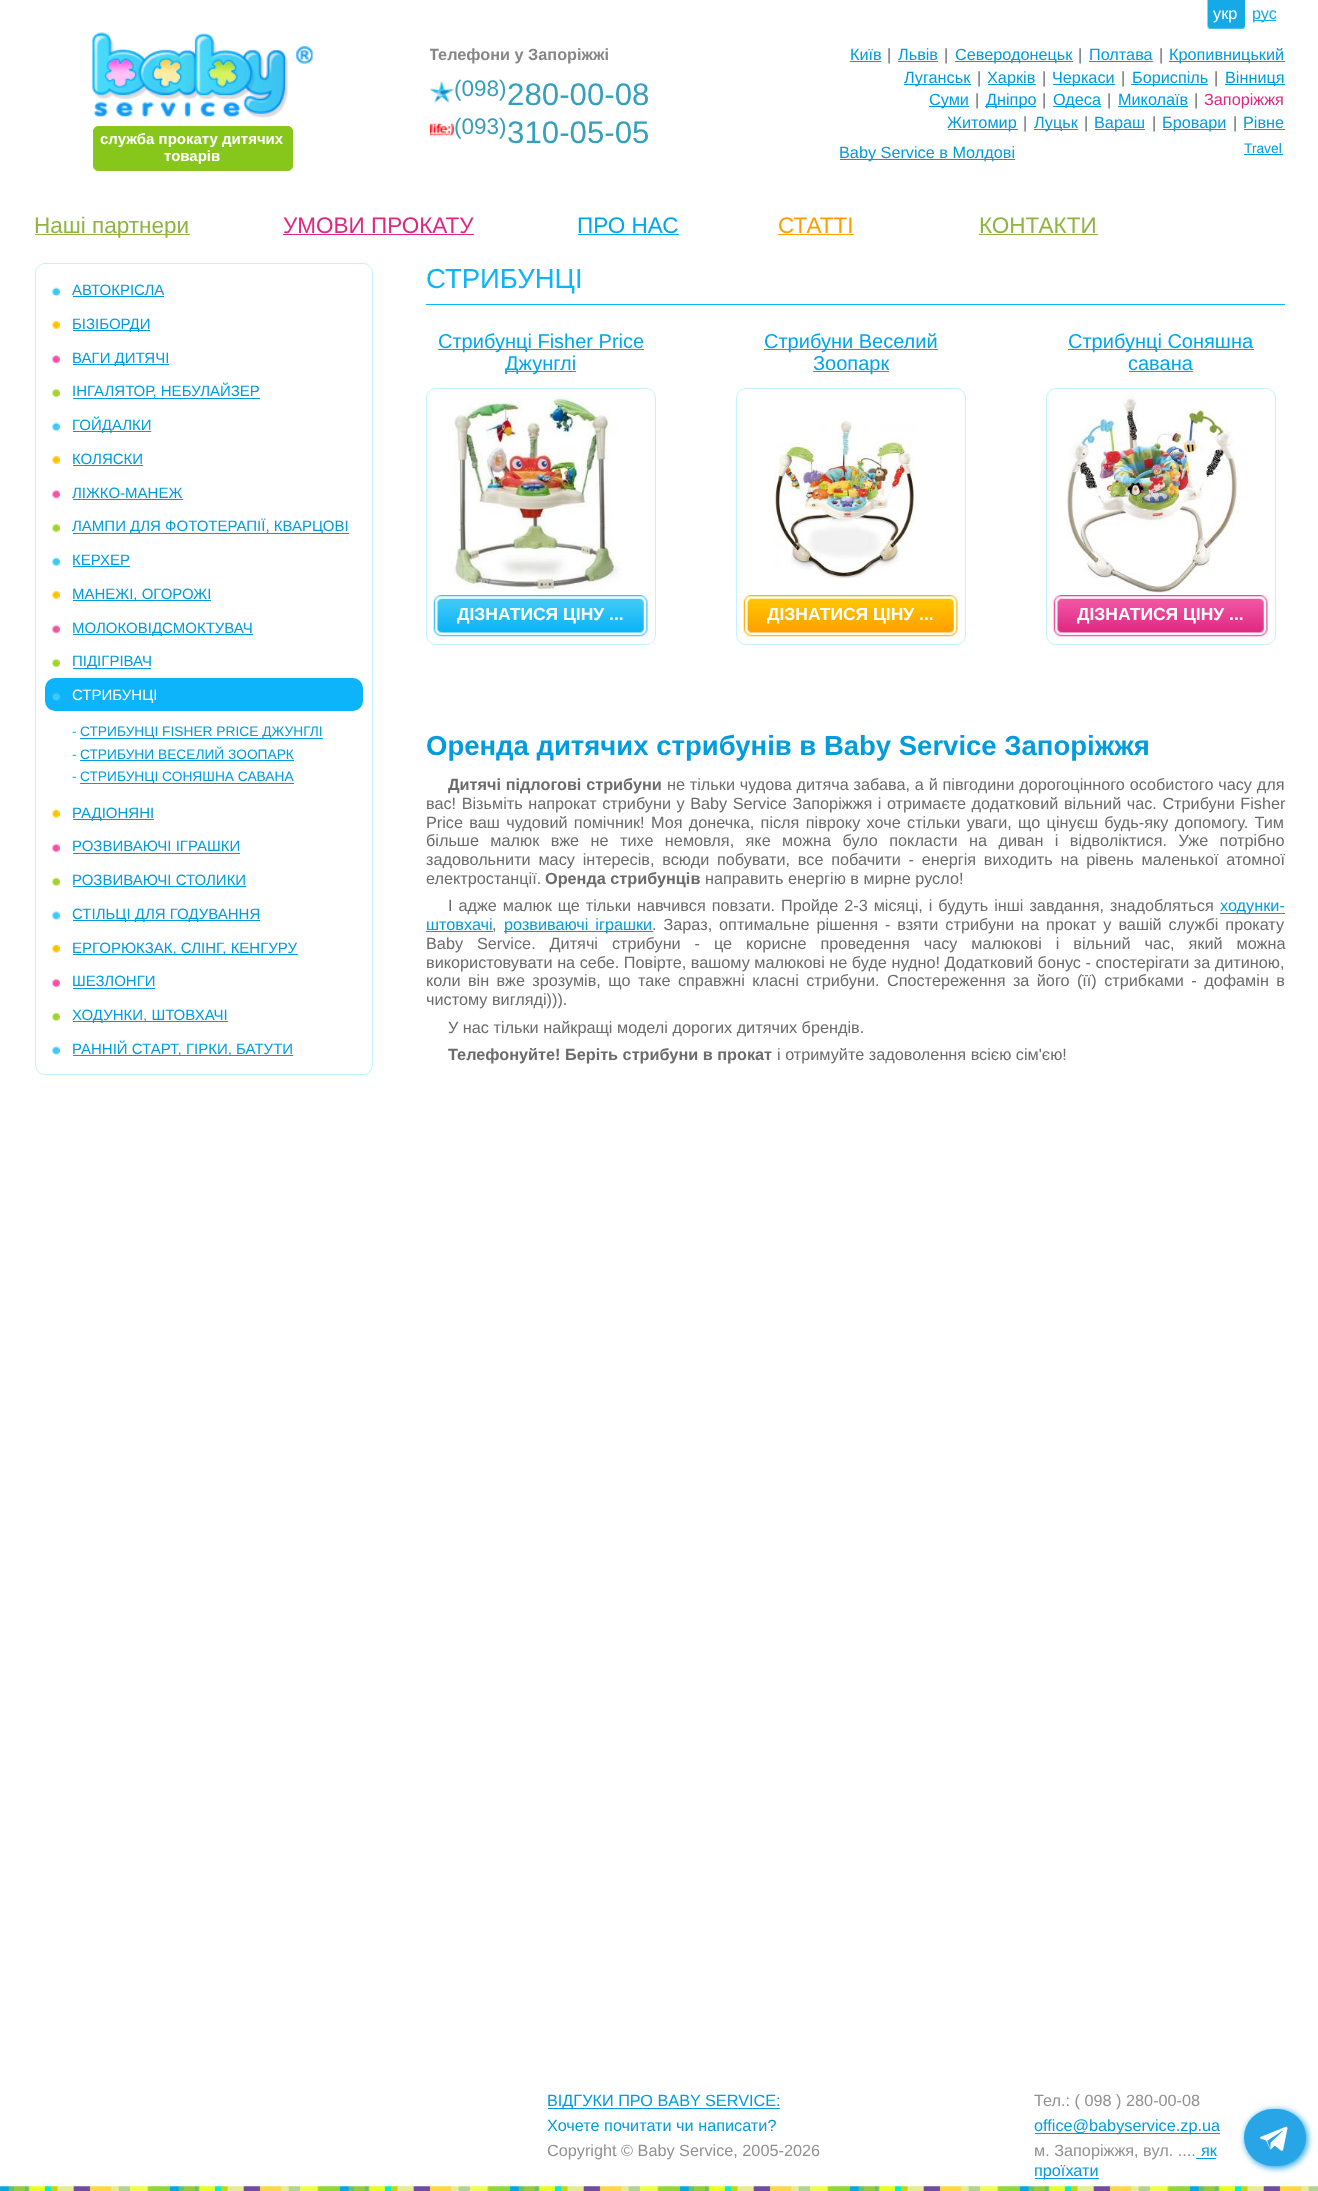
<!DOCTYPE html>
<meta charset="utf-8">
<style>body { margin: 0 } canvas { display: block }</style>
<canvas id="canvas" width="1318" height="2191"></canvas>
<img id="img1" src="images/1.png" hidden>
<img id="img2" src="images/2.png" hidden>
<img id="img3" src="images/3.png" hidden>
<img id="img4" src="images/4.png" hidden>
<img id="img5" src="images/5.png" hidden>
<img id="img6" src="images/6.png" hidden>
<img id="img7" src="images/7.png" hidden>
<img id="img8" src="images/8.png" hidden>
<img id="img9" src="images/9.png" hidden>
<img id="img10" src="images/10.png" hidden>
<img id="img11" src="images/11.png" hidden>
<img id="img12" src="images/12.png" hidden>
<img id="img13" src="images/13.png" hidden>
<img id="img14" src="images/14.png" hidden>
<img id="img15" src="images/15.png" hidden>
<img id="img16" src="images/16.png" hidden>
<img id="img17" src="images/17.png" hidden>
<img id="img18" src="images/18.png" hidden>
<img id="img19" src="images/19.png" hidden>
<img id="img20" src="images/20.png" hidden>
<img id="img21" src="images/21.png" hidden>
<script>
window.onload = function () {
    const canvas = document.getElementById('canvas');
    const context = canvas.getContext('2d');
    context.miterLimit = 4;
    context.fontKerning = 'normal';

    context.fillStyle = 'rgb(255, 255, 255)';
    context.fillRect(0, 0, 1318, 2191);
    context.drawImage(document.getElementById('img1'), 1207, 0, 38, 29);
    context.fillStyle = 'rgb(21, 170, 229)';
    context.fillRect(1253, 20, 23, 1);
    context.drawImage(document.getElementById('img2'), 430, 81, 24, 22);
    context.drawImage(document.getElementById('img3'), 430, 122, 24, 15);
    context.fillStyle = 'rgb(0, 156, 222)';
    context.fillRect(850, 61, 31, 1);
    context.fillRect(898, 61, 40, 1);
    context.fillRect(955, 61, 118, 1);
    context.fillRect(1089, 61, 64, 1);
    context.fillRect(1169, 61, 116, 1);
    context.fillRect(904, 84, 67, 1);
    context.fillRect(988, 84, 48, 1);
    context.fillRect(1053, 84, 62, 1);
    context.fillRect(1131, 84, 77, 1);
    context.fillRect(1225, 84, 60, 1);
    context.fillRect(929, 106, 40, 1);
    context.fillRect(985, 106, 51, 1);
    context.fillRect(1053, 106, 48, 1);
    context.fillRect(1118, 106, 70, 1);
    context.fillRect(948, 129, 70, 1);
    context.fillRect(1034, 129, 44, 1);
    context.fillRect(1095, 129, 50, 1);
    context.fillRect(1163, 129, 63, 1);
    context.fillRect(1244, 129, 41, 1);
    context.fillRect(840, 159, 175, 1);
    context.fillRect(1244, 154, 39, 1);
    context.drawImage(document.getElementById('img4'), 92, 32, 221, 86);
    context.fillStyle = 'rgb(135, 199, 27)';
    context.beginPath();
    context.roundRect(93.5, 126.5, 199, 44, 4.5);
    context.fill();
    context.strokeStyle = 'rgb(135, 199, 27)';
    context.stroke();
    context.fillStyle = 'rgb(143, 180, 67)';
    context.fillRect(35, 234, 155, 1);
    context.fillStyle = 'rgb(222, 40, 130)';
    context.fillRect(283, 234, 191, 1);
    context.fillStyle = 'rgb(0, 166, 237)';
    context.fillRect(578, 234, 101, 1);
    context.fillStyle = 'rgb(255, 156, 0)';
    context.fillRect(778, 234, 76, 1);
    context.fillStyle = 'rgb(143, 180, 67)';
    context.fillRect(979, 234, 119, 1);
    context.beginPath();
    context.roundRect(35.5, 263.5, 337, 811, 9.5);
    context.strokeStyle = 'rgb(195, 242, 255)';
    context.stroke();
    context.drawImage(document.getElementById('img5'), 52, 287, 8, 10);
    context.fillStyle = 'rgb(0, 156, 222)';
    context.fillRect(73, 296, 91, 1);
    context.drawImage(document.getElementById('img6'), 52, 321, 8, 8);
    context.fillRect(73, 330, 77, 1);
    context.drawImage(document.getElementById('img7'), 52, 355, 8, 9);
    context.fillRect(73, 364, 96, 1);
    context.drawImage(document.getElementById('img8'), 52, 388, 8, 10);
    context.fillRect(73, 398, 187, 1);
    context.drawImage(document.getElementById('img5'), 52, 422, 8, 10);
    context.fillRect(73, 431, 78, 1);
    context.drawImage(document.getElementById('img6'), 52, 456, 8, 8);
    context.fillRect(73, 465, 70, 1);
    context.drawImage(document.getElementById('img7'), 52, 490, 8, 9);
    context.fillRect(73, 499, 110, 1);
    context.drawImage(document.getElementById('img8'), 52, 523, 8, 10);
    context.fillRect(73, 533, 276, 1);
    context.drawImage(document.getElementById('img5'), 52, 557, 8, 10);
    context.fillRect(73, 566, 57, 1);
    context.drawImage(document.getElementById('img6'), 52, 591, 8, 8);
    context.fillRect(73, 600, 138, 1);
    context.drawImage(document.getElementById('img7'), 52, 625, 8, 9);
    context.fillRect(73, 634, 180, 1);
    context.drawImage(document.getElementById('img8'), 52, 658, 8, 10);
    context.fillRect(73, 668, 78, 1);
    context.fillStyle = 'rgb(14, 180, 249)';
    context.beginPath();
    context.roundRect(45, 678, 318, 33, 10);
    context.fill();
    context.drawImage(document.getElementById('img9'), 52, 692, 8, 9);
    context.fillStyle = 'rgb(0, 156, 222)';
    context.fillRect(80, 738, 243, 1);
    context.fillRect(80, 760, 214, 1);
    context.fillRect(80, 783, 214, 1);
    context.drawImage(document.getElementById('img10'), 52, 810, 8, 8);
    context.fillRect(73, 819, 81, 1);
    context.drawImage(document.getElementById('img11'), 52, 843, 8, 10);
    context.fillRect(73, 853, 167, 1);
    context.drawImage(document.getElementById('img12'), 52, 877, 8, 10);
    context.fillRect(73, 886, 173, 1);
    context.drawImage(document.getElementById('img13'), 52, 911, 8, 9);
    context.fillRect(73, 920, 187, 1);
    context.drawImage(document.getElementById('img10'), 52, 945, 8, 8);
    context.fillRect(73, 954, 225, 1);
    context.drawImage(document.getElementById('img11'), 52, 978, 8, 10);
    context.fillRect(73, 988, 82, 1);
    context.drawImage(document.getElementById('img12'), 52, 1012, 8, 10);
    context.fillRect(73, 1021, 155, 1);
    context.drawImage(document.getElementById('img13'), 52, 1046, 8, 9);
    context.fillRect(73, 1055, 220, 1);
    context.fillStyle = 'rgb(14, 180, 249)';
    context.fillRect(426, 304, 859, 1);
    context.fillStyle = 'rgb(0, 166, 237)';
    context.fillRect(438, 349, 206, 1);
    context.fillRect(505, 371, 71, 1);
    context.beginPath();
    context.roundRect(426.5, 388.5, 229, 256, 9.5);
    context.strokeStyle = 'rgb(195, 242, 252)';
    context.stroke();
    context.drawImage(document.getElementById('img14'), 452, 395, 171, 200);
    context.drawImage(document.getElementById('img15'), 433, 595, 215, 42);
    context.fillRect(764, 349, 174, 1);
    context.fillRect(813, 371, 76, 1);
    context.beginPath();
    context.roundRect(736.5, 388.5, 229, 256, 9.5);
    context.stroke();
    context.drawImage(document.getElementById('img16'), 774, 420, 142, 159);
    context.drawImage(document.getElementById('img17'), 743, 595, 215, 42);
    context.fillRect(1068, 349, 186, 1);
    context.fillRect(1129, 371, 64, 1);
    context.beginPath();
    context.roundRect(1046.5, 388.5, 229, 256, 9.5);
    context.stroke();
    context.drawImage(document.getElementById('img18'), 1067, 395, 172, 200);
    context.drawImage(document.getElementById('img19'), 1053, 595, 215, 42);
    context.fillStyle = 'rgb(0, 156, 222)';
    context.fillRect(1220, 913, 65, 1);
    context.fillRect(426, 931, 67, 1);
    context.fillRect(504, 931, 149, 1);
    context.drawImage(document.getElementById('img20'), 0, 2186, 1318, 5);
    context.fillRect(548, 2108, 232, 1);
    context.fillRect(1035, 2133, 185, 1);
    context.fillRect(1196, 2158, 20, 1);
    context.fillRect(1035, 2178, 64, 1);
    context.fillStyle = 'rgb(39, 165, 231)';
    context.filter = 'blur(3px)';
    context.beginPath();
    context.roundRect(1245, 2110, 63, 58, 29);
    context.fill();
    context.filter = 'none';
    context.beginPath();
    context.roundRect(1244, 2109, 62, 57, 28.5);
    context.fill();
    context.drawImage(document.getElementById('img21'), 1259, 2126, 29, 25);
    context.font = '16.25px Liberation Sans';
    context.fillStyle = 'rgb(255, 255, 255)';
    context.fillText('укр', 1213, 19);
    context.fillStyle = 'rgb(21, 170, 229)';
    context.fillText('рус', 1252, 19);
    context.save();
    context.beginPath();
    context.rect(430, 45, 220, 110);
    context.clip();
    context.font = 'bold 16.25px Liberation Sans';
    context.fillStyle = 'rgb(134, 134, 134)';
    context.fillText('Телефони у Запоріжжі', 429, 60);
    context.restore();
    context.font = '22.5px Liberation Sans';
    context.fillStyle = 'rgb(53, 159, 190)';
    context.fillText('(098)', 454, 96);
    context.font = '31.25px Liberation Sans';
    context.fillText('280-00-08', 507, 105);
    context.font = '22.5px Liberation Sans';
    context.fillText('(093)', 454, 134);
    context.font = '31.25px Liberation Sans';
    context.fillText('310-05-05', 507, 143);
    context.font = '16.25px Liberation Sans';
    context.fillStyle = 'rgb(0, 156, 222)';
    context.fillText('Київ', 850, 60);
    context.fillStyle = 'rgb(107, 107, 107)';
    context.fillText('|', 887, 60);
    context.fillStyle = 'rgb(0, 156, 222)';
    context.fillText('Львів', 898, 60);
    context.fillStyle = 'rgb(107, 107, 107)';
    context.fillText('|', 944, 60);
    context.fillStyle = 'rgb(0, 156, 222)';
    context.fillText('Северодонецьк', 955, 60);
    context.fillStyle = 'rgb(107, 107, 107)';
    context.fillText('|', 1078, 60);
    context.fillStyle = 'rgb(0, 156, 222)';
    context.fillText('Полтава', 1089, 60);
    context.fillStyle = 'rgb(107, 107, 107)';
    context.fillText('|', 1159, 60);
    context.fillStyle = 'rgb(0, 156, 222)';
    context.fillText('Кропивницький', 1169, 60);
    context.fillText('Луганськ', 904, 83);
    context.fillStyle = 'rgb(107, 107, 107)';
    context.fillText('|', 977, 83);
    context.fillStyle = 'rgb(0, 156, 222)';
    context.fillText('Харків', 987, 83);
    context.fillStyle = 'rgb(107, 107, 107)';
    context.fillText('|', 1042, 83);
    context.fillStyle = 'rgb(0, 156, 222)';
    context.fillText('Черкаси', 1052, 83);
    context.fillStyle = 'rgb(107, 107, 107)';
    context.fillText('|', 1121, 83);
    context.fillStyle = 'rgb(0, 156, 222)';
    context.fillText('Бориспіль', 1132, 83);
    context.fillStyle = 'rgb(107, 107, 107)';
    context.fillText('|', 1214, 83);
    context.fillStyle = 'rgb(0, 156, 222)';
    context.fillText('Вінниця', 1225, 83);
    context.fillText('Суми', 929, 105);
    context.fillStyle = 'rgb(107, 107, 107)';
    context.fillText('|', 975, 105);
    context.fillStyle = 'rgb(0, 156, 222)';
    context.fillText('Дніпро', 986, 105);
    context.fillStyle = 'rgb(107, 107, 107)';
    context.fillText('|', 1042, 105);
    context.fillStyle = 'rgb(0, 156, 222)';
    context.fillText('Одеса', 1053, 105);
    context.fillStyle = 'rgb(107, 107, 107)';
    context.fillText('|', 1107, 105);
    context.fillStyle = 'rgb(0, 156, 222)';
    context.fillText('Миколаїв', 1118, 105);
    context.fillStyle = 'rgb(107, 107, 107)';
    context.fillText('|', 1194, 105);
    context.fillStyle = 'rgb(222, 40, 130)';
    context.fillText('Запоріжжя', 1204, 105);
    context.fillStyle = 'rgb(0, 156, 222)';
    context.fillText('Житомир', 947, 128);
    context.fillStyle = 'rgb(107, 107, 107)';
    context.fillText('|', 1023, 128);
    context.fillStyle = 'rgb(0, 156, 222)';
    context.fillText('Луцьк', 1034, 128);
    context.fillStyle = 'rgb(107, 107, 107)';
    context.fillText('|', 1084, 128);
    context.fillStyle = 'rgb(0, 156, 222)';
    context.fillText('Вараш', 1094, 128);
    context.fillStyle = 'rgb(107, 107, 107)';
    context.fillText('|', 1152, 128);
    context.fillStyle = 'rgb(0, 156, 222)';
    context.fillText('Бровари', 1162, 128);
    context.fillStyle = 'rgb(107, 107, 107)';
    context.fillText('|', 1233, 128);
    context.fillStyle = 'rgb(0, 156, 222)';
    context.fillText('Рівне', 1243, 128);
    context.fillText('Baby Service в Молдові', 839, 158);
    context.font = '13.75px Liberation Sans';
    context.fillText('Travel', 1244, 153);
    context.font = 'bold 15px Liberation Sans';
    context.fillStyle = 'rgb(255, 255, 255)';
    context.fillText('служба прокату дитячих', 100, 144);
    context.fillText('товарів', 164, 161);
    context.font = '22.5px Liberation Sans';
    context.fillStyle = 'rgb(143, 180, 67)';
    context.fillText('Наші партнери', 34, 233);
    context.fillStyle = 'rgb(222, 40, 130)';
    context.fillText('УМОВИ ПРОКАТУ', 283, 233);
    context.fillStyle = 'rgb(0, 166, 237)';
    context.fillText('ПРО НАС', 577, 233);
    context.fillStyle = 'rgb(255, 156, 0)';
    context.fillText('СТАТТІ', 778, 233);
    context.fillStyle = 'rgb(143, 180, 67)';
    context.fillText('КОНТАКТИ', 979, 233);
    context.font = '15px Liberation Sans';
    context.fillStyle = 'rgb(0, 156, 222)';
    context.fillText('АВТОКРІСЛА', 72, 295);
    context.fillText('БІЗІБОРДИ', 72, 329);
    context.fillText('ВАГИ ДИТЯЧІ', 72, 363);
    context.fillText('ІНГАЛЯТОР, НЕБУЛАЙЗЕР', 72, 396);
    context.fillText('ГОЙДАЛКИ', 72, 430);
    context.fillText('КОЛЯСКИ', 72, 464);
    context.fillText('ЛІЖКО-МАНЕЖ', 72, 498);
    context.fillText('ЛАМПИ ДЛЯ ФОТОТЕРАПІЇ, КВАРЦОВІ', 72, 531);
    context.fillText('КЕРХЕР', 72, 565);
    context.fillText('МАНЕЖІ, ОГОРОЖІ', 72, 599);
    context.fillText('МОЛОКОВІДСМОКТУВАЧ', 72, 633);
    context.fillText('ПІДІГРІВАЧ', 72, 666);
    context.fillStyle = 'rgb(255, 255, 255)';
    context.fillText('СТРИБУНЦІ', 72, 700);
    context.font = '13.75px Liberation Sans';
    context.fillStyle = 'rgb(14, 180, 249)';
    context.fillText('-', 72, 736);
    context.fillStyle = 'rgb(0, 156, 222)';
    context.fillText('СТРИБУНЦІ FISHER PRICE ДЖУНГЛІ', 80, 736);
    context.fillStyle = 'rgb(14, 180, 249)';
    context.fillText('-', 72, 759);
    context.fillStyle = 'rgb(0, 156, 222)';
    context.fillText('СТРИБУНИ ВЕСЕЛИЙ ЗООПАРК', 80, 759);
    context.fillStyle = 'rgb(14, 180, 249)';
    context.fillText('-', 72, 781);
    context.fillStyle = 'rgb(0, 156, 222)';
    context.fillText('СТРИБУНЦІ СОНЯШНА САВАНА', 80, 781);
    context.font = '15px Liberation Sans';
    context.fillText('РАДІОНЯНІ', 72, 818);
    context.fillText('РОЗВИВАЮЧІ ІГРАШКИ', 72, 851);
    context.fillText('РОЗВИВАЮЧІ СТОЛИКИ', 72, 885);
    context.fillText('СТІЛЬЦІ ДЛЯ ГОДУВАННЯ', 72, 919);
    context.fillText('ЕРГОРЮКЗАК, СЛІНГ, КЕНГУРУ', 72, 953);
    context.fillText('ШЕЗЛОНГИ', 72, 986);
    context.fillText('ХОДУНКИ, ШТОВХАЧІ', 72, 1020);
    context.fillText('РАННІЙ СТАРТ, ГІРКИ, БАТУТИ', 72, 1054);
    context.font = '27.5px Liberation Sans';
    context.fillStyle = 'rgb(14, 180, 249)';
    context.fillText('СТРИБУНЦІ', 426, 288);
    context.font = '20px Liberation Sans';
    context.fillStyle = 'rgb(0, 166, 237)';
    context.fillText('Стрибунці Fisher Price', 438, 348);
    context.fillText('Джунглі', 505, 370);
    context.font = 'bold 17.5px Liberation Sans';
    context.fillStyle = 'rgb(255, 255, 255)';
    context.fillText('ДІЗНАТИСЯ ЦІНУ ...', 457, 620);
    context.font = '20px Liberation Sans';
    context.fillStyle = 'rgb(0, 166, 237)';
    context.fillText('Стрибуни Веселий', 764, 348);
    context.fillText('Зоопарк', 813, 370);
    context.font = 'bold 17.5px Liberation Sans';
    context.fillStyle = 'rgb(255, 255, 255)';
    context.fillText('ДІЗНАТИСЯ ЦІНУ ...', 767, 620);
    context.font = '20px Liberation Sans';
    context.fillStyle = 'rgb(0, 166, 237)';
    context.fillText('Стрибунці Соняшна', 1068, 348);
    context.fillText('савана', 1128, 370);
    context.font = 'bold 17.5px Liberation Sans';
    context.fillStyle = 'rgb(255, 255, 255)';
    context.fillText('ДІЗНАТИСЯ ЦІНУ ...', 1077, 620);
    context.font = 'bold 27.5px Liberation Sans';
    context.fillStyle = 'rgb(0, 156, 222)';
    context.fillText('Оренда дитячих стрибунів в Baby Service Запоріжжя', 426, 755);
    context.wordSpacing = '0.25px';
    context.font = 'bold 16.25px Liberation Sans';
    context.fillStyle = 'rgb(107, 107, 107)';
    context.fillText('Дитячі підлогові стрибуни', 448, 790);
    context.font = '16.25px Liberation Sans';
    context.fillText('не тільки чудова дитяча забава, а й півгодини дорогоцінного особистого часу для', 667, 790);
    context.wordSpacing = '1px';
    context.fillText('вас! Візьміть напрокат стрибуни у Baby Service Запоріжжя і отримаєте додатковий вільний час. Стрибуни Fisher', 426, 809);
    context.wordSpacing = '1.8px';
    context.fillText('Price ваш чудовий помічник! Моя донечка, після півроку хоче стільки уваги, що цінуєш будь-яку допомогу. Тим', 426, 828);
    context.wordSpacing = '6.9px';
    context.fillText('більше малюк вже не тихе немовля, яке можна було покласти на диван і відволіктися. Уже потрібно', 426, 846);
    context.wordSpacing = '3.25px';
    context.fillText('задовольнити масу інтересів, всюди побувати, все побачити - енергія виходить на рівень маленької атомної', 426, 865);
    context.wordSpacing = '0px';
    context.fillText('електростанції.', 426, 884);
    context.font = 'bold 16.25px Liberation Sans';
    context.fillText('Оренда стрибунців', 545, 884);
    context.font = '16.25px Liberation Sans';
    context.fillText('направить енергію в мирне русло!', 705, 884);
    context.wordSpacing = '1.4px';
    context.fillText('І адже малюк ще тільки навчився повзати. Пройде 2-3 місяці, і будуть інші завдання, знадобляться', 448, 911);
    context.wordSpacing = '0px';
    context.fillStyle = 'rgb(0, 156, 222)';
    context.fillText('ходунки-', 1220, 911);
    context.fillText('штовхачі', 426, 930);
    context.fillStyle = 'rgb(107, 107, 107)';
    context.fillText(',', 492, 930);
    context.wordSpacing = '2.4px';
    context.fillStyle = 'rgb(0, 156, 222)';
    context.fillText('розвиваючі іграшки', 504, 930);
    context.fillStyle = 'rgb(107, 107, 107)';
    context.fillText('. Зараз, оптимальне рішення - взяти стрибуни на прокат у вашій службі прокату', 652, 930);
    context.wordSpacing = '9.4px';
    context.fillText('Baby Service. Дитячі стрибуни - це корисне проведення часу малюкові і вільний час, який можна', 426, 949);
    context.wordSpacing = '0px';
    context.fillText('використовувати на себе. Повірте, вашому малюкові не буде нудно! Додатковий бонус - спостерігати за дитиною,', 426, 968);
    context.wordSpacing = '2.9px';
    context.fillText('коли він вже зрозумів, що таке справжні класні стрибуни. Спостереження за його (її) стрибками - дофамін в', 426, 986);
    context.wordSpacing = '0px';
    context.fillText('чистому вигляді))).', 426, 1005);
    context.fillText('У нас тільки найкращі моделі дорогих дитячих брендів.', 448, 1033);
    context.font = 'bold 16.25px Liberation Sans';
    context.fillText('Телефонуйте! Беріть стрибуни в прокат', 448, 1060);
    context.font = '16.25px Liberation Sans';
    context.fillText('і отримуйте задоволення всією сім\'єю!', 777, 1060);
    context.fillStyle = 'rgb(0, 156, 222)';
    context.fillText('ВІДГУКИ ПРО BABY SERVICE:', 547, 2106);
    context.fillText('Хочете почитати чи написати?', 547, 2131);
    context.fillStyle = 'rgb(145, 145, 145)';
    context.fillText('Copyright © Baby Service, 2005-2026', 547, 2156);
    context.fillText('Тел.: ( 098 ) 280-00-08', 1034, 2106);
    context.fillStyle = 'rgb(0, 156, 222)';
    context.fillText('office@babyservice.zp.ua', 1034, 2131);
    context.fillStyle = 'rgb(145, 145, 145)';
    context.fillText('м. Запоріжжя, вул. ....', 1034, 2156);
    context.fillStyle = 'rgb(0, 156, 222)';
    context.fillText('як', 1201, 2156);
    context.fillText('проїхати', 1034, 2176);
};
</script>
